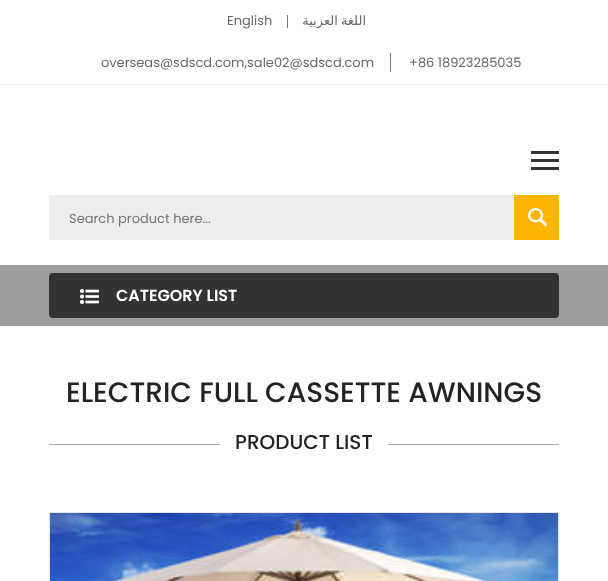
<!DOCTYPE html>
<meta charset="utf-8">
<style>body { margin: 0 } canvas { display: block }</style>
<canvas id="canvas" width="608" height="581"></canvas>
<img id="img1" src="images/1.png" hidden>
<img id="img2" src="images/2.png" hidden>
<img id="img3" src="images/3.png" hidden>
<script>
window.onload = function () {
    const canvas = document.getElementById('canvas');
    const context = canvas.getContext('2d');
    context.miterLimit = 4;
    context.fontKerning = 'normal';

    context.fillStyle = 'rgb(255, 255, 255)';
    context.fillRect(0, 0, 608, 581);
    context.fillStyle = 'rgb(235, 235, 235)';
    context.fillRect(0, 84, 608, 1);
    context.fillStyle = 'rgb(124, 124, 124)';
    context.fillRect(287, 15, 1, 13);
    context.fillRect(390, 53, 1, 19);
    context.fillStyle = 'rgb(51, 51, 51)';
    context.fillRect(531, 151, 28, 3);
    context.fillRect(531, 159, 28, 3);
    context.fillRect(531, 167, 28, 3);
    context.fillStyle = 'rgb(237, 237, 237)';
    context.fillRect(49, 195, 465, 45);
    context.fillStyle = 'rgb(255, 180, 0)';
    context.fillRect(514, 195, 45, 45);
    context.drawImage(document.getElementById('img1'), 528, 208, 19, 18);
    context.fillStyle = 'rgb(158, 158, 158)';
    context.fillRect(0, 265, 608, 61);
    context.fillStyle = 'rgb(51, 51, 51)';
    context.beginPath();
    context.roundRect(49, 273, 510, 45, 4);
    context.fill();
    context.drawImage(document.getElementById('img2'), 80, 289, 19, 15);
    context.fillStyle = 'rgb(165, 171, 183)';
    context.fillRect(49, 444, 171, 1);
    context.fillRect(388, 444, 171, 1);
    context.strokeStyle = 'rgb(229, 229, 229)';
    context.strokeRect(49.5, 512.5, 509, 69);
    context.drawImage(document.getElementById('img3'), 50, 513, 508, 68);
    context.font = '13px Poppins';
    context.fillStyle = 'rgb(103, 103, 103)';
    context.fillText('English', 227, 25);
    context.wordSpacing = '-1px';
    context.direction = 'rtl';
    context.font = '13px DejaVu Sans';
    context.fillText('اللغة العربية', 366, 25);
    context.wordSpacing = '0px';
    context.direction = 'ltr';
    context.font = '13px Poppins';
    context.fillText('overseas@sdscd.com,sale02@sdscd.com', 101, 67);
    context.fillText('+86 18923285035', 409, 67);
    context.fillStyle = 'rgb(117, 117, 117)';
    context.fillText('Search product here...', 69, 223);
    context.font = '600 16px Poppins';
    context.fillStyle = 'rgb(255, 255, 255)';
    context.fillText('CATEGORY LIST', 116, 301);
    context.font = '500 28px Poppins';
    context.fillStyle = 'rgb(35, 35, 35)';
    context.fillText('ELECTRIC FULL CASSETTE AWNINGS', 66, 402);
    context.font = '500 20px Poppins';
    context.fillText('PRODUCT LIST', 235, 449);
};
</script>
